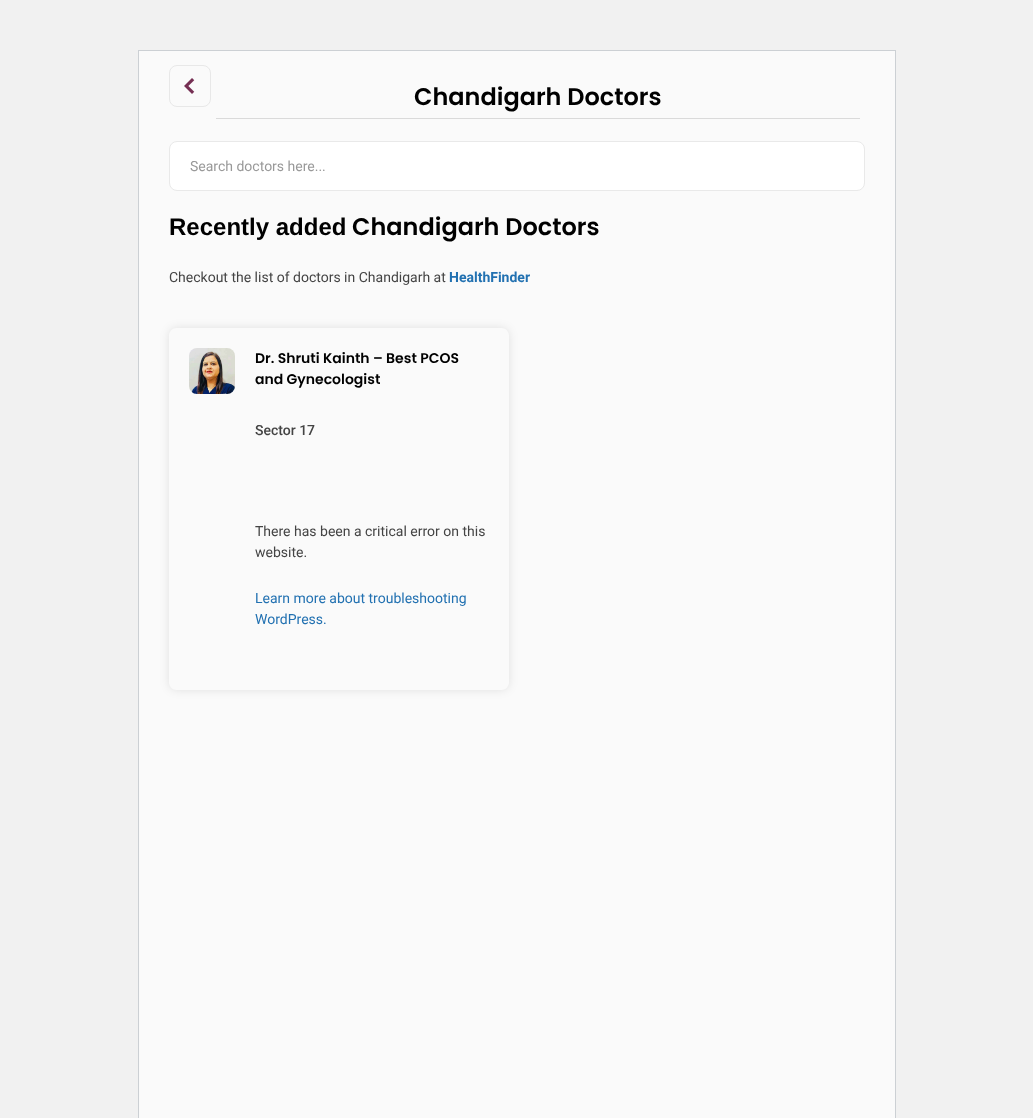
<!DOCTYPE html>
<meta charset="utf-8">
<style>body { margin: 0 } canvas { display: block }</style>
<canvas id="canvas" width="1033" height="1118"></canvas>
<img id="img1" src="images/1.png" hidden>
<img id="img2" src="images/2.png" hidden>
<script>
window.onload = function () {
    const canvas = document.getElementById('canvas');
    const context = canvas.getContext('2d');
    context.miterLimit = 4;
    context.fontKerning = 'normal';

    context.fillStyle = 'rgb(241, 241, 241)';
    context.fillRect(0, 0, 1033, 1118);
    context.strokeStyle = 'rgb(204, 208, 212)';
    context.strokeRect(138.5, 50.5, 757, 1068);
    context.fillStyle = 'rgb(250, 250, 250)';
    context.fillRect(139, 51, 756, 1067);
    context.beginPath();
    context.roundRect(169.5, 65.5, 41, 41, 7.5);
    context.strokeStyle = 'rgb(232, 232, 232)';
    context.stroke();
    context.drawImage(document.getElementById('img1'), 184, 78, 11, 16);
    context.fillStyle = 'rgb(218, 218, 218)';
    context.fillRect(216, 118, 644, 1);
    context.fillStyle = 'rgb(255, 255, 255)';
    context.beginPath();
    context.roundRect(169.5, 141.5, 695, 49, 7.5);
    context.fill();
    context.strokeStyle = 'rgb(233, 233, 233)';
    context.stroke();
    context.save();
    context.beginPath();
    context.moveTo(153, 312);
    context.lineTo(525, 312);
    context.lineTo(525, 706);
    context.lineTo(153, 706);
    context.closePath();
    context.moveTo(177, 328);
    context.lineTo(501, 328);
    context.bezierCurveTo(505.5, 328, 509, 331.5, 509, 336);
    context.lineTo(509, 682);
    context.bezierCurveTo(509, 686.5, 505.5, 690, 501, 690);
    context.lineTo(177, 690);
    context.bezierCurveTo(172.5, 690, 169, 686.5, 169, 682);
    context.lineTo(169, 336);
    context.bezierCurveTo(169, 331.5, 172.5, 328, 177, 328);
    context.closePath();
    context.clip('evenodd');
    context.fillStyle = 'rgba(0, 0, 0, 0.1)';
    context.filter = 'blur(5px)';
    context.beginPath();
    context.roundRect(169, 328, 340, 362, 8);
    context.fill();
    context.filter = 'none';
    context.restore();
    context.drawImage(document.getElementById('img2'), 189, 348, 46, 46);
    context.font = '600 24px Poppins';
    context.fillStyle = 'rgb(0, 0, 0)';
    context.fillText('Chandigarh Doctors', 414, 105);
    context.font = '14px Roboto';
    context.fillStyle = 'rgb(153, 153, 153)';
    context.fillText('Search doctors here...', 190, 171);
    context.font = 'bold 24px Liberation Sans';
    context.fillStyle = 'rgb(0, 0, 0)';
    context.fillText('Recently added', 169, 235);
    context.font = '600 24px Poppins';
    context.fillText('Chandigarh Doctors', 352, 235);
    context.font = '14px Roboto';
    context.fillStyle = 'rgb(68, 68, 68)';
    context.fillText('Checkout the list of doctors in Chandigarh at', 169, 282);
    context.font = 'bold 14px Roboto';
    context.fillStyle = 'rgb(34, 113, 177)';
    context.fillText('HealthFinder', 449, 282);
    context.font = '600 14px Poppins';
    context.fillStyle = 'rgb(0, 0, 0)';
    context.fillText('Dr. Shruti Kainth – Best PCOS', 255, 363);
    context.fillText('and Gynecologist', 255, 384);
    context.font = '500 14px Roboto';
    context.fillStyle = 'rgb(68, 68, 68)';
    context.fillText('Sector 17', 255, 435);
    context.font = '14px Roboto';
    context.fillText('There has been a critical error on this', 255, 536);
    context.fillText('website.', 255, 557);
    context.fillStyle = 'rgb(34, 113, 177)';
    context.fillText('Learn more about troubleshooting', 255, 603);
    context.fillText('WordPress.', 255, 624);
};
</script>
